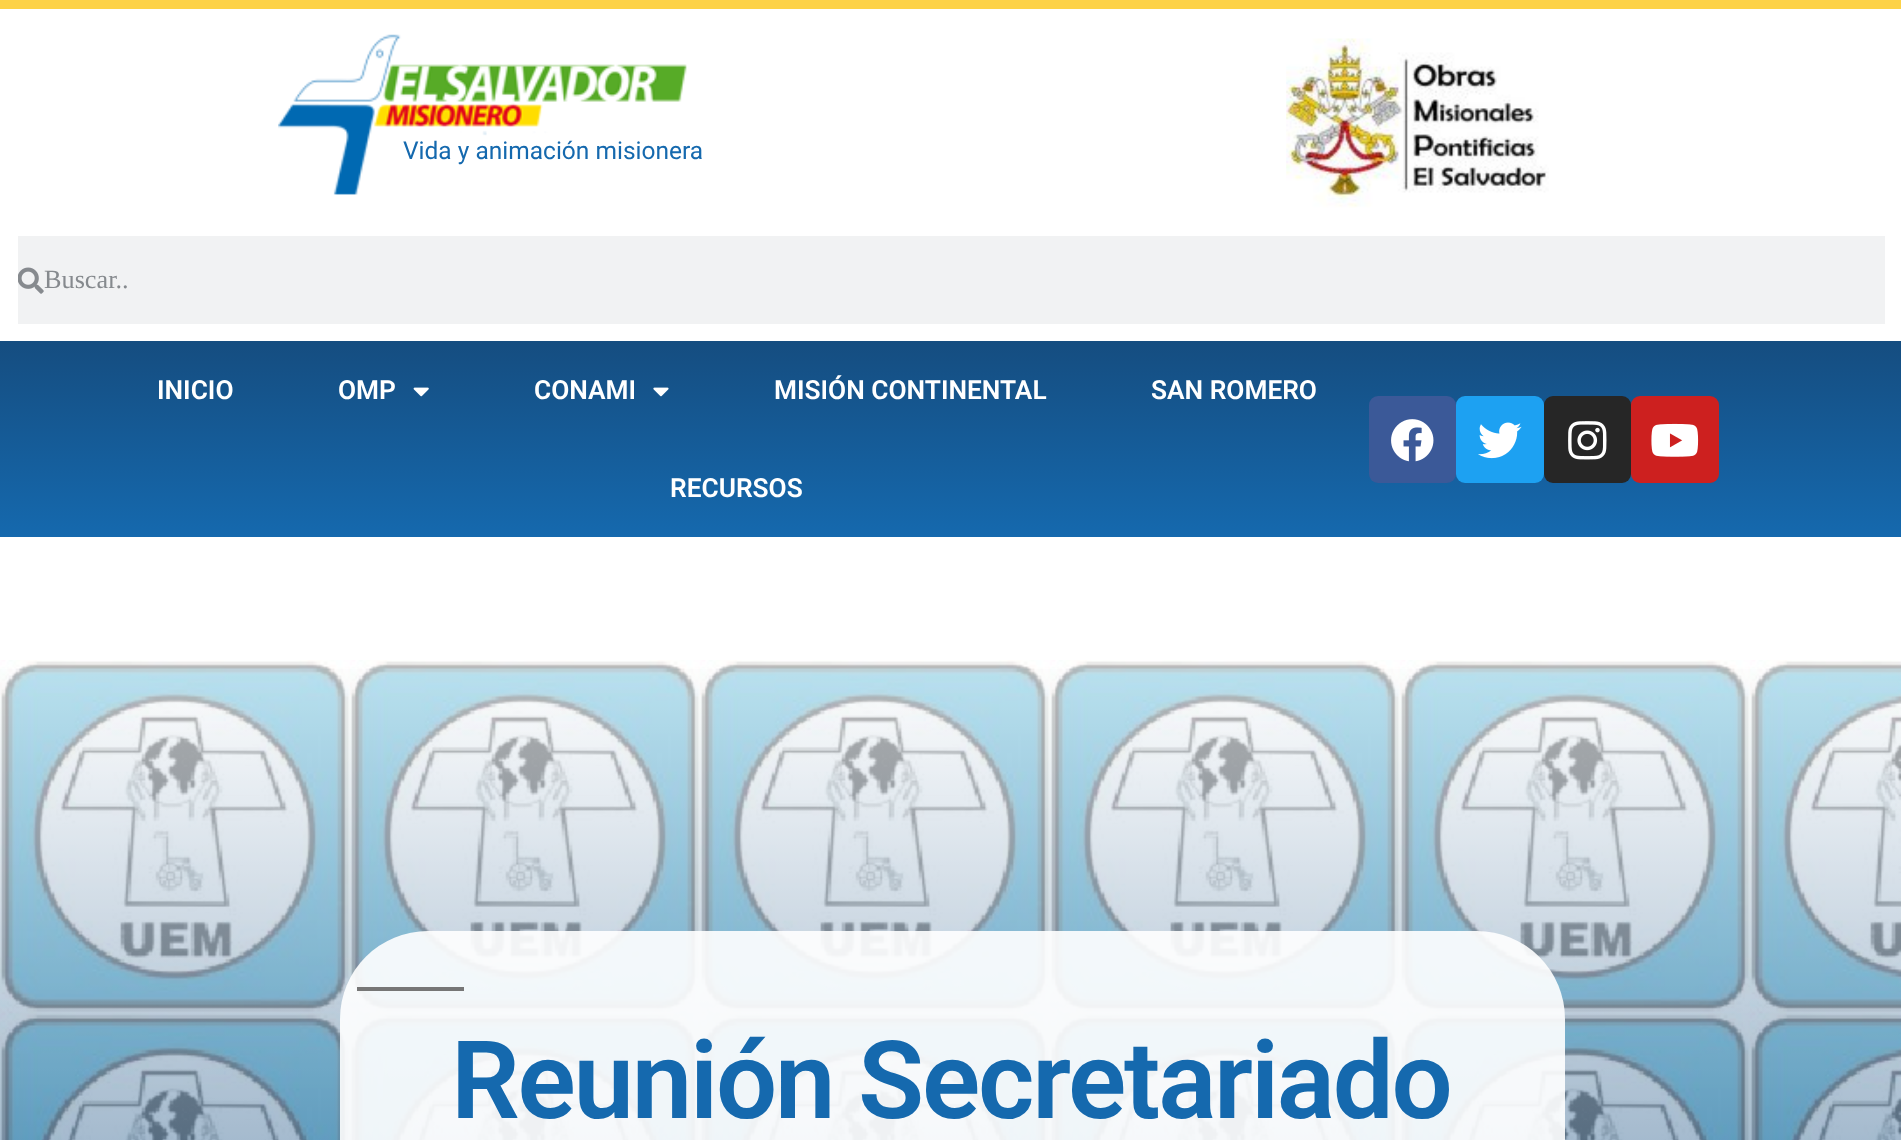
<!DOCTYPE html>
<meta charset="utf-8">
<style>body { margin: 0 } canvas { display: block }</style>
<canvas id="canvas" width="1901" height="1140"></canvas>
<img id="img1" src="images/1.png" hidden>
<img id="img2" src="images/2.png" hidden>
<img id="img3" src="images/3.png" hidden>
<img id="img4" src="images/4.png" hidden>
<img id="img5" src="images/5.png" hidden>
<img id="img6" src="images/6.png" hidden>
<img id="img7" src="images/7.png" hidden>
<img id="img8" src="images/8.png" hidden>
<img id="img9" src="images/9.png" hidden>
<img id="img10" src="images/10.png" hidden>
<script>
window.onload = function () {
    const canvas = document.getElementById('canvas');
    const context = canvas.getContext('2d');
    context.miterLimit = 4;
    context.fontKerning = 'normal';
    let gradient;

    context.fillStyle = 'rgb(255, 255, 255)';
    context.fillRect(0, 0, 1901, 1140);
    context.fillStyle = 'rgb(253, 210, 71)';
    context.fillRect(0, 0, 1901, 9);
    context.drawImage(document.getElementById('img1'), 278, 34, 409, 161);
    context.drawImage(document.getElementById('img2'), 1286, 38, 263, 170);
    context.fillStyle = 'rgb(241, 242, 243)';
    context.fillRect(18, 236, 1867, 88);
    context.drawImage(document.getElementById('img3'), 18, 267, 26, 27);
    gradient = context.createLinearGradient(951, 341, 951, 537);
    gradient.addColorStop(0, 'rgb(21, 77, 128)');
    gradient.addColorStop(1, 'rgb(21, 105, 174)');
    context.fillStyle = gradient;
    context.fillRect(0, 341, 1901, 196);
    context.drawImage(document.getElementById('img4'), 413, 387, 16, 10);
    context.drawImage(document.getElementById('img5'), 653, 387, 16, 10);
    context.fillStyle = 'rgb(59, 89, 152)';
    context.beginPath();
    context.roundRect(1369, 396, 87, 87, 9);
    context.fill();
    context.drawImage(document.getElementById('img6'), 1391, 419, 43, 43);
    context.fillStyle = 'rgb(29, 161, 242)';
    context.beginPath();
    context.roundRect(1456, 396, 88, 87, 9);
    context.fill();
    context.drawImage(document.getElementById('img7'), 1478, 422, 44, 37);
    context.fillStyle = 'rgb(38, 38, 38)';
    context.beginPath();
    context.roundRect(1544, 396, 87, 87, 9);
    context.fill();
    context.drawImage(document.getElementById('img8'), 1568, 421, 39, 39);
    context.fillStyle = 'rgb(205, 32, 31)';
    context.beginPath();
    context.roundRect(1631, 396, 88, 87, 9);
    context.fill();
    context.drawImage(document.getElementById('img9'), 1651, 423, 48, 34);
    gradient = context.createLinearGradient(951, 660, 951, 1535);
    gradient.addColorStop(0, 'rgb(255, 255, 255)');
    gradient.addColorStop(1, 'rgb(21, 77, 128)');
    context.fillStyle = gradient;
    context.fillRect(0, 669, 1901, 471);
    context.drawImage(document.getElementById('img10'), 0, 660, 1901, 480);
    context.fillStyle = 'rgba(255, 255, 255, 0.9)';
    context.beginPath();
    context.roundRect(340, 931, 1225, 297, 88);
    context.fill();
    context.fillStyle = 'rgb(118, 118, 118)';
    context.fillRect(357, 987, 107, 4);
    context.font = '24.5px Roboto';
    context.fillStyle = 'rgb(21, 105, 174)';
    context.fillText('Vida y animación misionera', 403, 159);
    context.font = '26.25px Liberation Serif';
    context.fillStyle = 'rgb(134, 138, 142)';
    context.fillText('Buscar..', 44, 288);
    context.font = '600 26.25px Roboto';
    context.fillStyle = 'rgb(255, 255, 255)';
    context.fillText('INICIO', 157, 399);
    context.fillText('OMP', 338, 399);
    context.fillText('CONAMI', 534, 399);
    context.fillText('MISIÓN CONTINENTAL', 774, 399);
    context.fillText('SAN ROMERO', 1151, 399);
    context.fillText('RECURSOS', 670, 497);
    context.letterSpacing = '-2.2px';
    context.font = '600 108.25px Roboto';
    context.fillStyle = 'rgb(21, 105, 174)';
    context.fillText('Reunión Secretariado', 451, 1118);
};
</script>
